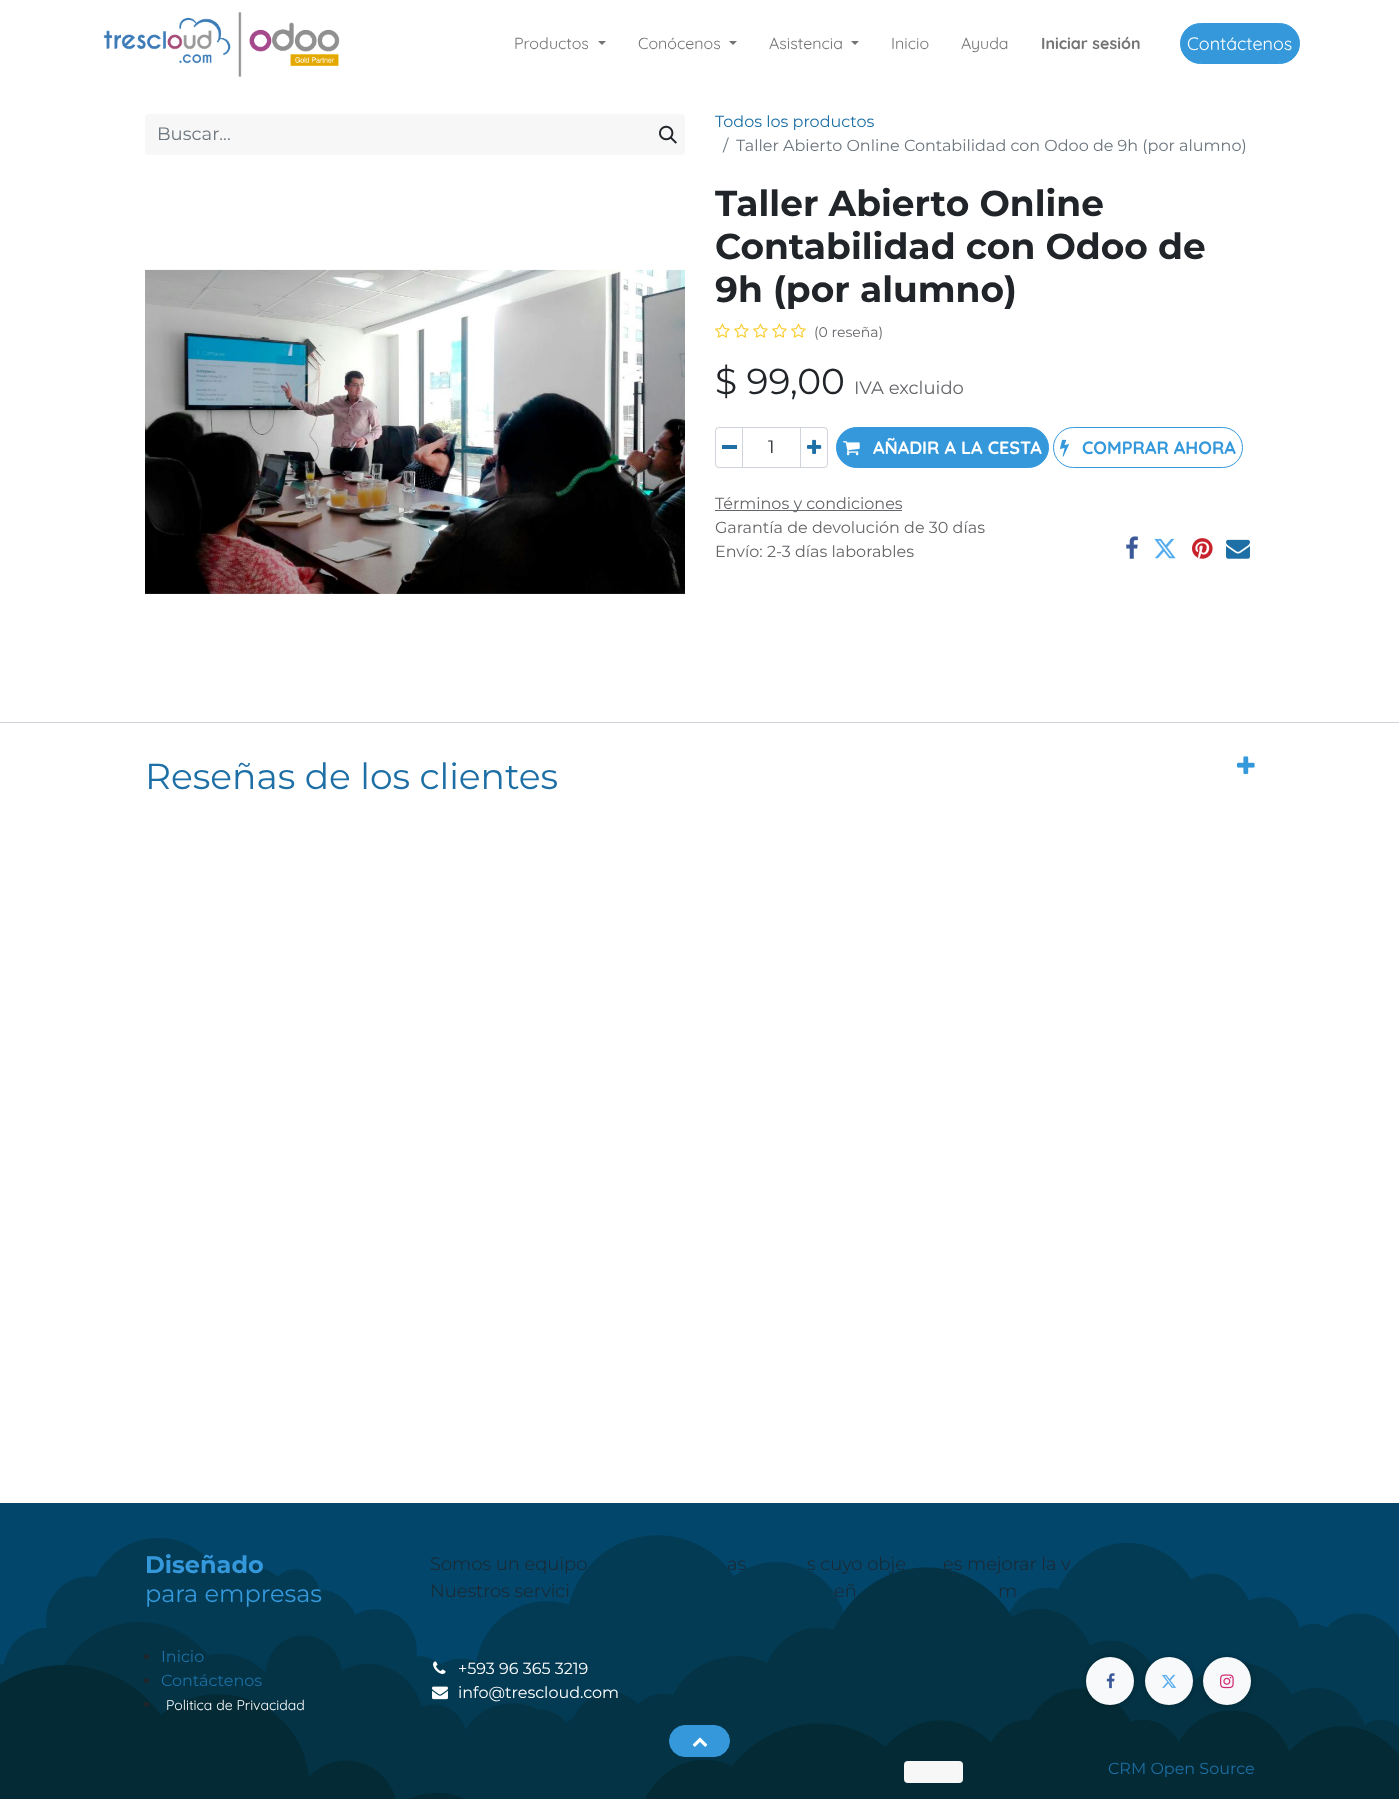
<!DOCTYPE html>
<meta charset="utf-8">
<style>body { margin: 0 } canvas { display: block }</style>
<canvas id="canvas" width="1399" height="1799"></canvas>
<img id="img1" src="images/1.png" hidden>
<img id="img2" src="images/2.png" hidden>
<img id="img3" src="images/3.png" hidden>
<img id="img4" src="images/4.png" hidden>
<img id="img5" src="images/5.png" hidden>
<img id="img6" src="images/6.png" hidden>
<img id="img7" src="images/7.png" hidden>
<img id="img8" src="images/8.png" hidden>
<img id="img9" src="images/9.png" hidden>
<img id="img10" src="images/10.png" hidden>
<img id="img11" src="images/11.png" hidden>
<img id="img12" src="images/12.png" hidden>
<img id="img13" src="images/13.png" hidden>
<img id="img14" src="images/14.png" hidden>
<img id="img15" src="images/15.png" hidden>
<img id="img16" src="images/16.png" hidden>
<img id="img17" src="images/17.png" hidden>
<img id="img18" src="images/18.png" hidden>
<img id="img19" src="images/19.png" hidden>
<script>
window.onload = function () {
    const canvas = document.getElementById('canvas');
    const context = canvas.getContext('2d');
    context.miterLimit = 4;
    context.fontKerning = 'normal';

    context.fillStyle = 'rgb(255, 255, 255)';
    context.fillRect(0, 0, 1399, 1799);
    context.drawImage(document.getElementById('img1'), 103, 12, 237, 65);
    context.fillStyle = 'rgb(115, 115, 115)';
    context.beginPath();
    context.moveTo(598, 41);
    context.lineTo(606, 41);
    context.lineTo(602, 45);
    context.closePath();
    context.fill();
    context.beginPath();
    context.moveTo(729, 41);
    context.lineTo(737, 41);
    context.lineTo(733, 45);
    context.closePath();
    context.fill();
    context.beginPath();
    context.moveTo(851, 41);
    context.lineTo(859, 41);
    context.lineTo(855, 45);
    context.closePath();
    context.fill();
    context.fillStyle = 'rgb(52, 152, 219)';
    context.beginPath();
    context.roundRect(1180.5, 23.5, 119, 40, 20);
    context.fill();
    context.strokeStyle = 'rgb(52, 152, 219)';
    context.stroke();
    context.fillStyle = 'rgb(247, 247, 247)';
    context.beginPath();
    context.roundRect(145, 114, 508, 41, [4, 0, 0, 4]);
    context.fill();
    context.beginPath();
    context.roundRect(652, 114, 33, 41, [0, 4, 4, 0]);
    context.fill();
    context.drawImage(document.getElementById('img2'), 659, 125, 18, 19);
    context.drawImage(document.getElementById('img3'), 145, 269, 540, 325);
    context.drawImage(document.getElementById('img4'), 715, 323, 15, 15);
    context.drawImage(document.getElementById('img4'), 734, 323, 15, 15);
    context.drawImage(document.getElementById('img4'), 753, 323, 15, 15);
    context.drawImage(document.getElementById('img4'), 772, 323, 15, 15);
    context.drawImage(document.getElementById('img4'), 791, 323, 15, 15);
    context.strokeStyle = 'rgb(206, 212, 218)';
    context.strokeRect(742.5, 427.5, 58, 40);
    context.beginPath();
    context.roundRect(715.5, 427.5, 27, 40, [3.5, 0, 0, 3.5]);
    context.stroke();
    context.fillStyle = 'rgb(29, 111, 165)';
    context.fillRect(722, 445, 15, 4);
    context.beginPath();
    context.roundRect(800.5, 427.5, 27, 40, [0, 3.5, 3.5, 0]);
    context.stroke();
    context.drawImage(document.getElementById('img5'), 807, 439, 15, 15);
    context.fillStyle = 'rgb(52, 152, 219)';
    context.beginPath();
    context.roundRect(836.5, 427.5, 212, 40, 20);
    context.fill();
    context.strokeStyle = 'rgb(52, 152, 219)';
    context.stroke();
    context.drawImage(document.getElementById('img6'), 843, 441, 17, 15);
    context.beginPath();
    context.roundRect(1053.5, 427.5, 189, 40, 20);
    context.stroke();
    context.drawImage(document.getElementById('img7'), 1060, 439, 9, 18);
    context.fillStyle = 'rgb(100, 102, 105)';
    context.fillRect(715, 510, 187, 1);
    context.drawImage(document.getElementById('img8'), 1126, 536, 12, 23);
    context.drawImage(document.getElementById('img9'), 1154, 538, 22, 21);
    context.drawImage(document.getElementById('img10'), 1192, 538, 21, 21);
    context.drawImage(document.getElementById('img11'), 1226, 539, 24, 20);
    context.fillStyle = 'rgb(206, 212, 218)';
    context.fillRect(0, 722, 1399, 1);
    context.drawImage(document.getElementById('img12'), 1237, 756, 18, 18);
    context.fillStyle = 'rgb(2, 70, 107)';
    context.fillRect(0, 1503, 1399, 162);
    context.drawImage(document.getElementById('img13'), 0, 1535, 1399, 264);
    context.fillStyle = 'rgb(33, 37, 41)';
    context.beginPath();
    context.arc(146.5, 1656.5, 2.5, 0, 2 * Math.PI);
    context.fill();
    context.beginPath();
    context.arc(146.5, 1680.5, 2.5, 0, 2 * Math.PI);
    context.fill();
    context.beginPath();
    context.arc(146.5, 1704.5, 2.5, 0, 2 * Math.PI);
    context.fill();
    context.drawImage(document.getElementById('img14'), 433, 1661, 13, 13);
    context.drawImage(document.getElementById('img15'), 432, 1686, 16, 14);
    context.fillStyle = 'rgba(0, 0, 0, 0.25)';
    context.filter = 'blur(2.5px)';
    context.beginPath();
    context.roundRect(1086, 1657, 48, 48, 24);
    context.fill();
    context.filter = 'none';
    context.fillStyle = 'rgb(248, 249, 250)';
    context.beginPath();
    context.arc(1110, 1681, 24, 0, 2 * Math.PI);
    context.fill();
    context.drawImage(document.getElementById('img16'), 1106, 1673, 9, 16);
    context.fillStyle = 'rgba(0, 0, 0, 0.25)';
    context.filter = 'blur(2.5px)';
    context.beginPath();
    context.roundRect(1145, 1657, 48, 48, 24);
    context.fill();
    context.filter = 'none';
    context.fillStyle = 'rgb(248, 249, 250)';
    context.beginPath();
    context.arc(1169, 1681, 24, 0, 2 * Math.PI);
    context.fill();
    context.drawImage(document.getElementById('img17'), 1162, 1674, 14, 14);
    context.fillStyle = 'rgba(0, 0, 0, 0.25)';
    context.filter = 'blur(2.5px)';
    context.beginPath();
    context.roundRect(1203, 1657, 48, 48, 24);
    context.fill();
    context.filter = 'none';
    context.fillStyle = 'rgb(248, 249, 250)';
    context.beginPath();
    context.arc(1227, 1681, 24, 0, 2 * Math.PI);
    context.fill();
    context.drawImage(document.getElementById('img18'), 1220, 1674, 14, 15);
    context.fillStyle = 'rgb(52, 152, 219)';
    context.beginPath();
    context.roundRect(669.5, 1725.5, 60, 31, 15.5);
    context.fill();
    context.stroke();
    context.drawImage(document.getElementById('img19'), 692, 1737, 16, 10);
    context.fillStyle = 'rgb(247, 247, 247)';
    context.beginPath();
    context.roundRect(904, 1761, 59, 22, 4);
    context.fill();
    context.font = '16px Quicksand';
    context.fillStyle = 'rgb(115, 115, 115)';
    context.fillText('Productos', 514, 49);
    context.fillText('Conócenos', 638, 49);
    context.fillText('Asistencia', 769, 49);
    context.fillText('Inicio', 891, 49);
    context.fillText('Ayuda', 961, 49);
    context.font = 'bold 16px Quicksand';
    context.fillText('Iniciar sesión', 1041, 49);
    context.font = '18px Quicksand';
    context.fillStyle = 'rgb(255, 255, 255)';
    context.fillText('Contáctenos', 1187, 50);
    context.font = '18px Montserrat';
    context.fillStyle = 'rgb(108, 117, 125)';
    context.fillText('Buscar...', 157, 140);
    context.font = '16px Montserrat';
    context.fillStyle = 'rgb(29, 111, 165)';
    context.fillText('Todos los productos', 715, 127);
    context.fillStyle = 'rgb(108, 117, 125)';
    context.fillText('/', 723, 151);
    context.fillText('Taller Abierto Online Contabilidad con Odoo de 9h (por alumno)', 736, 151);
    context.font = 'bold 36px Montserrat';
    context.fillStyle = 'rgb(33, 37, 41)';
    context.fillText('Taller Abierto Online', 715, 216);
    context.fillText('Contabilidad con Odoo de', 715, 259);
    context.fillText('9h (por alumno)', 715, 302);
    context.font = '14px Montserrat';
    context.fillStyle = 'rgb(100, 102, 105)';
    context.fillText('(0 reseña)', 814, 337);
    context.font = '36px Montserrat';
    context.fillStyle = 'rgb(33, 37, 41)';
    context.fillText('$ 99,00', 715, 394);
    context.font = '18px Montserrat';
    context.fillStyle = 'rgb(100, 102, 105)';
    context.fillText('IVA excluido', 854, 394);
    context.fillStyle = 'rgb(33, 37, 41)';
    context.fillText('1', 768, 453);
    context.font = 'bold 18px Quicksand';
    context.fillStyle = 'rgb(255, 255, 255)';
    context.fillText('AÑADIR A LA CESTA', 873, 454);
    context.fillStyle = 'rgb(52, 152, 219)';
    context.fillText('COMPRAR AHORA', 1082, 454);
    context.font = '16px Montserrat';
    context.fillStyle = 'rgb(100, 102, 105)';
    context.fillText('Términos y condiciones', 715, 509);
    context.fillText('Garantía de devolución de 30 días', 715, 533);
    context.fillText('Envío: 2-3 días laborables', 715, 557);
    context.font = '36px Montserrat';
    context.fillStyle = 'rgb(29, 111, 165)';
    context.fillText('Reseñas de los clientes', 145, 789);
    context.font = 'bold 24px Montserrat';
    context.fillStyle = 'rgb(52, 152, 219)';
    context.fillText('Diseñado', 145, 1573);
    context.font = '24px Montserrat';
    context.fillText('para empresas', 145, 1602);
    context.font = '300 18px Montserrat';
    context.fillStyle = 'rgb(33, 37, 41)';
    context.fillText('Somos un equipo', 430, 1570);
    context.fillText('as', 727, 1570);
    context.fillText('s cuyo obje', 807, 1570);
    context.fillText('es mejorar la v', 943, 1570);
    context.fillText('Nuestros servici', 430, 1597);
    context.fillText('eñ', 834, 1597);
    context.fillText('m', 998, 1597);
    context.font = '16px Montserrat';
    context.fillStyle = 'rgb(29, 111, 165)';
    context.fillText('Inicio', 161, 1662);
    context.fillText('Contáctenos', 161, 1686);
    context.font = '14px Quicksand';
    context.fillStyle = 'rgb(255, 255, 255)';
    context.fillText('Politica de Privacidad', 166, 1710);
    context.font = '16px Montserrat';
    context.fillText('+593 96 365 3219', 458, 1674);
    context.fillText('info@trescloud.com', 458, 1698);
    context.fillStyle = 'rgb(29, 111, 165)';
    context.fillText('CRM Open Source', 1108, 1774);
};
</script>
